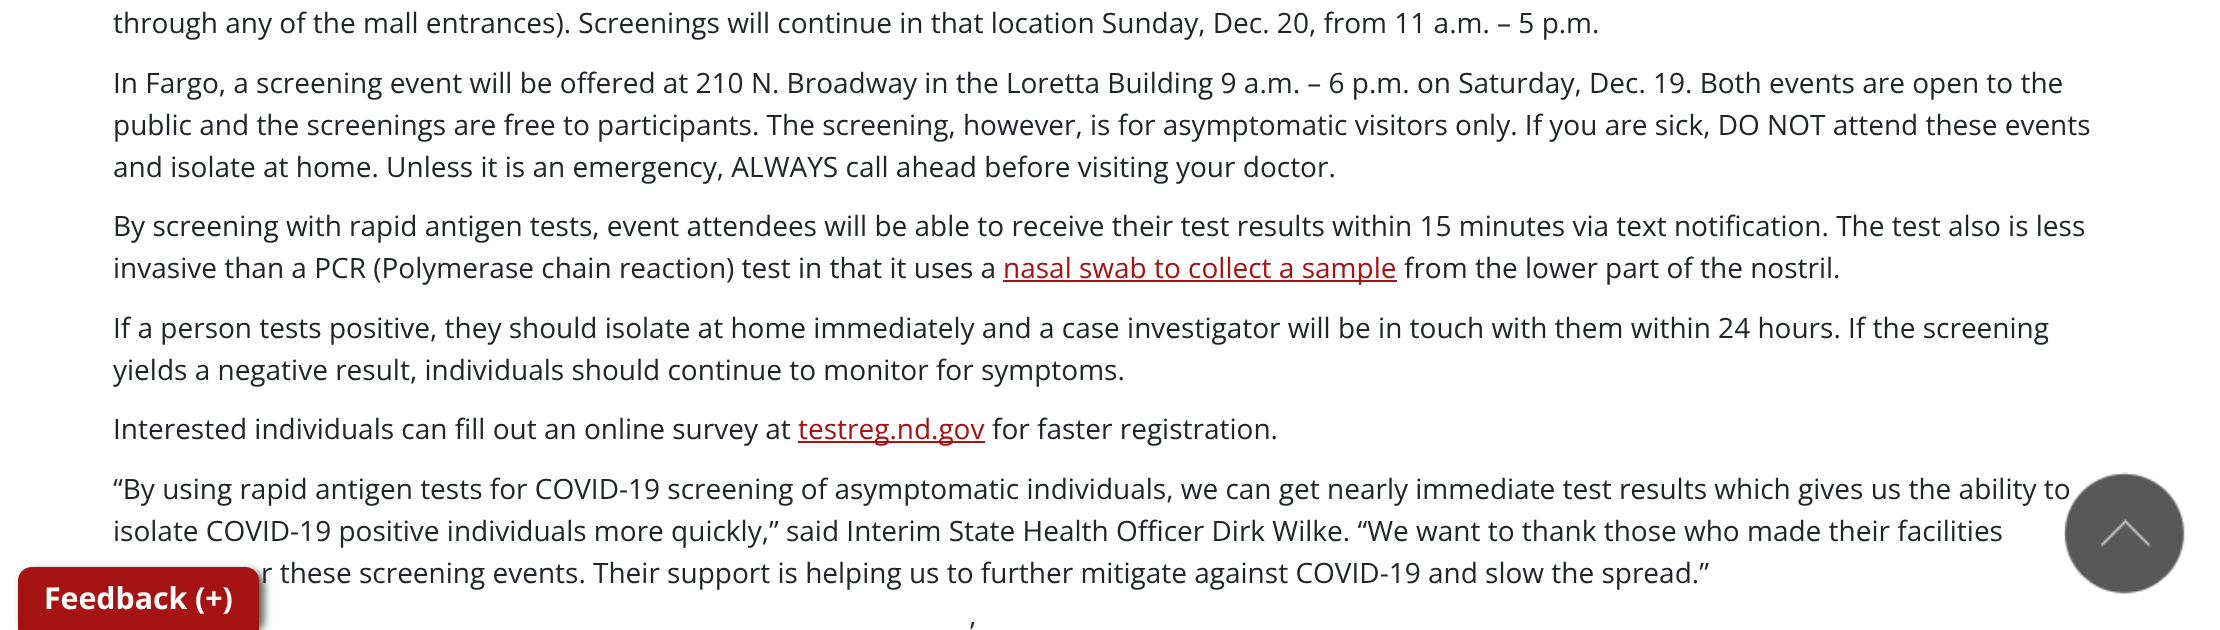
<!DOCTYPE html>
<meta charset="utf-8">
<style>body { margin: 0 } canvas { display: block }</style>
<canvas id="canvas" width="2220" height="630"></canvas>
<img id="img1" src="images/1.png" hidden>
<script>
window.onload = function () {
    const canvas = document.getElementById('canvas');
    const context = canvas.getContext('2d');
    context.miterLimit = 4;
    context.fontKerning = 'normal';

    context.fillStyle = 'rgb(255, 255, 255)';
    context.fillRect(0, 0, 2220, 630);
    context.fillStyle = 'rgb(165, 19, 19)';
    context.fillRect(1003, 280, 394, 2);
    context.fillRect(798, 441, 187, 2);
    context.fillStyle = 'rgb(85, 85, 85)';
    context.filter = 'blur(4.5px)';
    context.beginPath();
    context.roundRect(23, 571, 241, 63, 14);
    context.fill();
    context.filter = 'none';
    context.fillStyle = 'rgb(165, 19, 19)';
    context.beginPath();
    context.roundRect(18, 567, 241, 63, [14, 14, 0, 0]);
    context.fill();
    context.font = '28px Open Sans';
    context.fillStyle = 'rgb(33, 37, 41)';
    context.fillText('through any of the mall entrances). Screenings will continue in that location Sunday, Dec. 20, from 11 a.m. – 5 p.m.', 113, 33);
    context.fillText('In Fargo, a screening event will be offered at 210 N. Broadway in the Loretta Building 9 a.m. – 6 p.m. on Saturday, Dec. 19. Both events are open to the', 113, 93);
    context.fillText('public and the screenings are free to participants. The screening, however, is for asymptomatic visitors only. If you are sick, DO NOT attend these events', 113, 135);
    context.fillText('and isolate at home. Unless it is an emergency, ALWAYS call ahead before visiting your doctor.', 113, 177);
    context.fillText('By screening with rapid antigen tests, event attendees will be able to receive their test results within 15 minutes via text notification. The test also is less', 113, 236);
    context.fillText('invasive than a PCR (Polymerase chain reaction) test in that it uses a', 113, 278);
    context.fillStyle = 'rgb(165, 19, 19)';
    context.fillText('nasal swab to collect a sample', 1003, 278);
    context.fillStyle = 'rgb(33, 37, 41)';
    context.fillText('from the lower part of the nostril.', 1404, 278);
    context.fillText('If a person tests positive, they should isolate at home immediately and a case investigator will be in touch with them within 24 hours. If the screening', 113, 338);
    context.fillText('yields a negative result, individuals should continue to monitor for symptoms.', 113, 380);
    context.fillText('Interested individuals can fill out an online survey at', 113, 439);
    context.fillStyle = 'rgb(165, 19, 19)';
    context.fillText('testreg.nd.gov', 798, 439);
    context.fillStyle = 'rgb(33, 37, 41)';
    context.fillText('for faster registration.', 992, 439);
    context.fillText('“By using rapid antigen tests for COVID-19 screening of asymptomatic individuals, we can get nearly immediate test results which gives us the ability to', 113, 499);
    context.fillText('isolate COVID-19 positive individuals more quickly,” said Interim State Health Officer Dirk Wilke. “We want to thank those who made their facilities', 113, 541);
    context.fillText('r these screening events. Their support is helping us to further mitigate against COVID-19 and slow the spread.”', 261, 583);
    context.fillText('’', 970, 642);
    context.font = 'bold 30.25px Open Sans';
    context.fillStyle = 'rgb(255, 255, 255)';
    context.fillText('Feedback (+)', 44, 609);
    context.drawImage(document.getElementById('img1'), 2064, 472, 121, 122);
};
</script>
